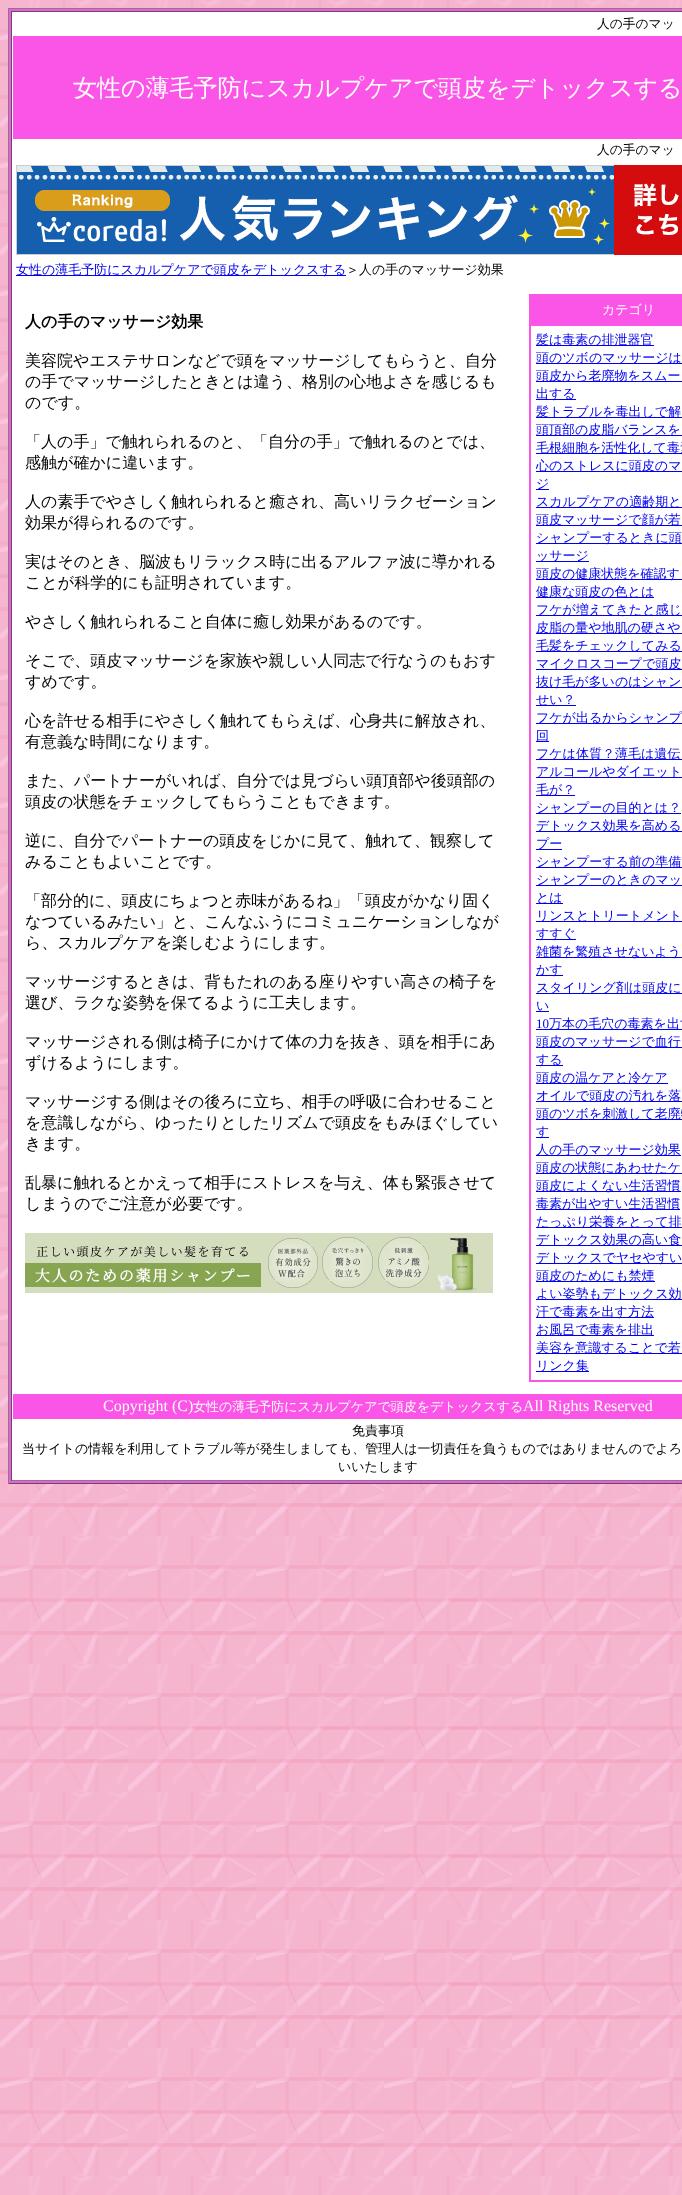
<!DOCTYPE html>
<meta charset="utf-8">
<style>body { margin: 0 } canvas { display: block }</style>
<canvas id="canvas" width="682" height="2195"></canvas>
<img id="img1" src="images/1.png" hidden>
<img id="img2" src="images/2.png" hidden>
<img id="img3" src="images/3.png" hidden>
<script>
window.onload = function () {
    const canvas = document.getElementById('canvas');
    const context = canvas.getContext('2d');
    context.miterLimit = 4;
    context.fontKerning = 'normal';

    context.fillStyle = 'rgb(255, 255, 255)';
    context.fillRect(0, 0, 682, 2195);
    context.drawImage(document.getElementById('img1'), 0, 0, 682, 2195);
    context.fillStyle = 'rgb(251, 85, 231)';
    context.fillRect(9, 9, 673, 1474);
    context.fillStyle = 'rgb(128, 128, 128)';
    context.fillRect(8, 8, 674, 1);
    context.fillStyle = 'rgb(85, 85, 85)';
    context.fillRect(8, 1483, 674, 1);
    context.fillStyle = 'rgb(128, 128, 128)';
    context.fillRect(8, 8, 1, 1476);
    context.fillStyle = 'rgb(255, 255, 255)';
    context.fillRect(12, 12, 670, 1468);
    context.fillStyle = 'rgb(85, 85, 85)';
    context.fillRect(11, 11, 671, 1);
    context.fillStyle = 'rgb(128, 128, 128)';
    context.fillRect(11, 1480, 671, 1);
    context.fillStyle = 'rgb(85, 85, 85)';
    context.fillRect(11, 11, 1, 1470);
    context.fillStyle = 'rgb(251, 85, 231)';
    context.fillRect(13, 36, 669, 103);
    context.drawImage(document.getElementById('img2'), 16, 165, 666, 90);
    context.fillStyle = 'rgb(0, 0, 238)';
    context.fillRect(16, 275, 330, 1);
    context.drawImage(document.getElementById('img3'), 25, 1233, 468, 60);
    context.fillStyle = 'rgb(251, 85, 231)';
    context.fillRect(529, 294, 153, 1088);
    context.fillStyle = 'rgb(255, 255, 255)';
    context.fillRect(531, 326, 151, 1054);
    context.fillStyle = 'rgb(0, 0, 238)';
    context.fillRect(536, 345, 118, 1);
    context.fillRect(536, 363, 146, 1);
    context.fillRect(536, 381, 146, 1);
    context.fillRect(536, 399, 40, 1);
    context.fillRect(536, 417, 146, 1);
    context.fillRect(536, 435, 146, 1);
    context.fillRect(536, 453, 146, 1);
    context.fillRect(536, 471, 146, 1);
    context.fillRect(536, 489, 13, 1);
    context.fillRect(536, 507, 146, 1);
    context.fillRect(536, 525, 146, 1);
    context.fillRect(536, 543, 146, 1);
    context.fillRect(536, 561, 53, 1);
    context.fillRect(536, 579, 146, 1);
    context.fillRect(536, 597, 118, 1);
    context.fillRect(536, 615, 146, 1);
    context.fillRect(536, 633, 146, 1);
    context.fillRect(536, 651, 146, 1);
    context.fillRect(536, 669, 146, 1);
    context.fillRect(536, 687, 146, 1);
    context.fillRect(536, 705, 40, 1);
    context.fillRect(536, 723, 146, 1);
    context.fillRect(536, 741, 13, 1);
    context.fillRect(536, 759, 146, 1);
    context.fillRect(536, 777, 146, 1);
    context.fillRect(536, 795, 39, 1);
    context.fillRect(536, 813, 145, 1);
    context.fillRect(536, 831, 146, 1);
    context.fillRect(536, 849, 26, 1);
    context.fillRect(536, 867, 146, 1);
    context.fillRect(536, 885, 146, 1);
    context.fillRect(536, 903, 27, 1);
    context.fillRect(536, 921, 146, 1);
    context.fillRect(536, 939, 40, 1);
    context.fillRect(536, 957, 146, 1);
    context.fillRect(536, 975, 27, 1);
    context.fillRect(536, 993, 146, 1);
    context.fillRect(536, 1011, 13, 1);
    context.fillRect(536, 1029, 146, 1);
    context.fillRect(536, 1047, 146, 1);
    context.fillRect(536, 1065, 27, 1);
    context.fillRect(536, 1083, 132, 1);
    context.fillRect(536, 1101, 146, 1);
    context.fillRect(536, 1119, 146, 1);
    context.fillRect(536, 1137, 13, 1);
    context.fillRect(536, 1155, 145, 1);
    context.fillRect(536, 1173, 146, 1);
    context.fillRect(536, 1191, 145, 1);
    context.fillRect(536, 1209, 144, 1);
    context.fillRect(536, 1227, 146, 1);
    context.fillRect(536, 1245, 146, 1);
    context.fillRect(536, 1263, 146, 1);
    context.fillRect(536, 1281, 119, 1);
    context.fillRect(536, 1299, 146, 1);
    context.fillRect(536, 1317, 118, 1);
    context.fillRect(536, 1335, 118, 1);
    context.fillRect(536, 1353, 146, 1);
    context.fillRect(536, 1371, 53, 1);
    context.fillStyle = 'rgb(251, 85, 231)';
    context.fillRect(13, 1394, 669, 25);
    context.font = '500 12.75px WenQuanYi Zen Hei';
    context.fillStyle = 'rgb(0, 0, 0)';
    context.fillText('人の手のマッ', 597, 28);
    context.font = '500 24px WenQuanYi Zen Hei';
    context.fillStyle = 'rgb(255, 255, 255)';
    context.fillText('女性の薄毛予防にスカルプケアで頭皮をデトックスする', 73, 96);
    context.font = '500 12.75px WenQuanYi Zen Hei';
    context.fillStyle = 'rgb(0, 0, 0)';
    context.fillText('人の手のマッ', 597, 154);
    context.font = '500 13px WenQuanYi Zen Hei';
    context.fillStyle = 'rgb(0, 0, 238)';
    context.fillText('女性の薄毛予防にスカルプケアで頭皮をデトックスする', 16, 274);
    context.fillStyle = 'rgb(0, 0, 0)';
    context.fillText('＞人の手のマッサージ効果', 346, 274);
    context.font = 'bold 16px WenQuanYi Zen Hei';
    context.fillText('人の手のマッサージ効果', 25, 327);
    context.font = '500 16px WenQuanYi Zen Hei';
    context.fillText('美容院やエステサロンなどで頭をマッサージしてもらうと、自分', 25, 366);
    context.fillText('の手でマッサージしたときとは違う、格別の心地よさを感じるも', 25, 387);
    context.fillText('のです。', 25, 408);
    context.fillText('「人の手」で触れられるのと、「自分の手」で触れるのとでは、', 25, 447);
    context.fillText('感触が確かに違います。', 25, 468);
    context.fillText('人の素手でやさしく触れられると癒され、高いリラクゼーション', 25, 507);
    context.fillText('効果が得られるのです。', 25, 528);
    context.fillText('実はそのとき、脳波もリラックス時に出るアルファ波に導かれる', 25, 567);
    context.fillText('ことが科学的にも証明されています。', 25, 588);
    context.fillText('やさしく触れられること自体に癒し効果があるのです。', 25, 627);
    context.fillText('そこで、頭皮マッサージを家族や親しい人同志で行なうのもおす', 25, 666);
    context.fillText('すめです。', 25, 687);
    context.fillText('心を許せる相手にやさしく触れてもらえば、心身共に解放され、', 25, 726);
    context.fillText('有意義な時間になります。', 25, 747);
    context.fillText('また、パートナーがいれば、自分では見づらい頭頂部や後頭部の', 25, 786);
    context.fillText('頭皮の状態をチェックしてもらうこともできます。', 25, 807);
    context.fillText('逆に、自分でパートナーの頭皮をじかに見て、触れて、観察して', 25, 846);
    context.fillText('みることもよいことです。', 25, 867);
    context.fillText('「部分的に、頭皮にちょつと赤味があるね」「頭皮がかなり固く', 25, 906);
    context.fillText('なつているみたい」と、こんなふうにコミュニケーションしなが', 25, 927);
    context.fillText('ら、スカルプケアを楽しむようにします。', 25, 948);
    context.fillText('マッサージするときは、背もたれのある座りやすい高さの椅子を', 25, 987);
    context.fillText('選び、ラクな姿勢を保てるように工夫します。', 25, 1008);
    context.fillText('マッサージされる側は椅子にかけて体の力を抜き、頭を相手にあ', 25, 1047);
    context.fillText('ずけるようにします。', 25, 1068);
    context.fillText('マッサージする側はその後ろに立ち、相手の呼吸に合わせること', 25, 1107);
    context.fillText('を意識しながら、ゆったりとしたリズムで頭皮をもみほぐしてい', 25, 1128);
    context.fillText('きます。', 25, 1149);
    context.fillText('乱暴に触れるとかえって相手にストレスを与え、体も緊張させて', 25, 1188);
    context.fillText('しまうのでご注意が必要です。', 25, 1209);
    context.font = '500 13px WenQuanYi Zen Hei';
    context.fillStyle = 'rgb(255, 255, 255)';
    context.fillText('カテゴリ', 602, 314);
    context.fillStyle = 'rgb(0, 0, 238)';
    context.fillText('髪は毒素の排泄器官', 536, 344);
    context.fillText('頭のツボのマッサージは', 536, 362);
    context.fillText('頭皮から老廃物をスムー', 536, 380);
    context.fillText('出する', 536, 398);
    context.fillText('髪トラブルを毒出しで解', 536, 416);
    context.fillText('頭頂部の皮脂バランスを', 536, 434);
    context.fillText('毛根細胞を活性化して毒素', 536, 452);
    context.fillText('心のストレスに頭皮のマ', 536, 470);
    context.fillText('ジ', 536, 488);
    context.fillText('スカルプケアの適齢期と', 536, 506);
    context.fillText('頭皮マッサージで顔が若', 536, 524);
    context.fillText('シャンプーするときに頭', 536, 542);
    context.fillText('ッサージ', 536, 560);
    context.fillText('頭皮の健康状態を確認す', 536, 578);
    context.fillText('健康な頭皮の色とは', 536, 596);
    context.fillText('フケが増えてきたと感じ', 536, 614);
    context.fillText('皮脂の量や地肌の硬さや', 536, 632);
    context.fillText('毛髪をチェックしてみる', 536, 650);
    context.fillText('マイクロスコープで頭皮', 536, 668);
    context.fillText('抜け毛が多いのはシャン', 536, 686);
    context.fillText('せい？', 536, 704);
    context.fillText('フケが出るからシャンプ', 536, 722);
    context.fillText('回', 536, 740);
    context.fillText('フケは体質？薄毛は遺伝', 536, 758);
    context.fillText('アルコールやダイエット', 536, 776);
    context.fillText('毛が？', 536, 794);
    context.fillText('シャンプーの目的とは？', 536, 812);
    context.fillText('デトックス効果を高める', 536, 830);
    context.fillText('プー', 536, 848);
    context.fillText('シャンプーする前の準備', 536, 866);
    context.fillText('シャンプーのときのマッ', 536, 884);
    context.fillText('とは', 536, 902);
    context.fillText('リンスとトリートメント', 536, 920);
    context.fillText('すすぐ', 536, 938);
    context.fillText('雑菌を繁殖させないよう', 536, 956);
    context.fillText('かす', 536, 974);
    context.fillText('スタイリング剤は頭皮に', 536, 992);
    context.fillText('い', 536, 1010);
    context.font = '13px Liberation Serif';
    context.fillText('10', 536, 1028);
    context.font = '500 13px WenQuanYi Zen Hei';
    context.fillText('万本の毛穴の毒素を出す', 549, 1028);
    context.fillText('頭皮のマッサージで血行', 536, 1046);
    context.fillText('する', 536, 1064);
    context.fillText('頭皮の温ケアと冷ケア', 536, 1082);
    context.fillText('オイルで頭皮の汚れを落', 536, 1100);
    context.fillText('頭のツボを刺激して老廃物', 536, 1118);
    context.fillText('す', 536, 1136);
    context.fillText('人の手のマッサージ効果', 536, 1154);
    context.fillText('頭皮の状態にあわせたケ', 536, 1172);
    context.fillText('頭皮によくない生活習慣', 536, 1190);
    context.fillText('毒素が出やすい生活習慣', 536, 1208);
    context.fillText('たっぷり栄養をとって排', 536, 1226);
    context.fillText('デトックス効果の高い食', 536, 1244);
    context.fillText('デトックスでヤセやすい', 536, 1262);
    context.fillText('頭皮のためにも禁煙', 536, 1280);
    context.fillText('よい姿勢もデトックス効', 536, 1298);
    context.fillText('汗で毒素を出す方法', 536, 1316);
    context.fillText('お風呂で毒素を排出', 536, 1334);
    context.fillText('美容を意識することで若', 536, 1352);
    context.fillText('リンク集', 536, 1370);
    context.font = '16px Liberation Serif';
    context.fillStyle = 'rgb(255, 255, 255)';
    context.fillText('Copyright (C)', 103, 1411);
    context.font = '500 13px WenQuanYi Zen Hei';
    context.fillText('女性の薄毛予防にスカルプケアで頭皮をデトックスする', 193, 1411);
    context.font = '16px Liberation Serif';
    context.fillText('All Rights Reserved', 523, 1411);
    context.font = '500 13px WenQuanYi Zen Hei';
    context.fillStyle = 'rgb(0, 0, 0)';
    context.fillText('免責事項', 352, 1435);
    context.fillText('当サイトの情報を利用してトラブル等が発生しましても、管理人は一切責任を負うものではありませんのでよろ', 22, 1453);
    context.fillText('いいたします', 338, 1471);
};
</script>
